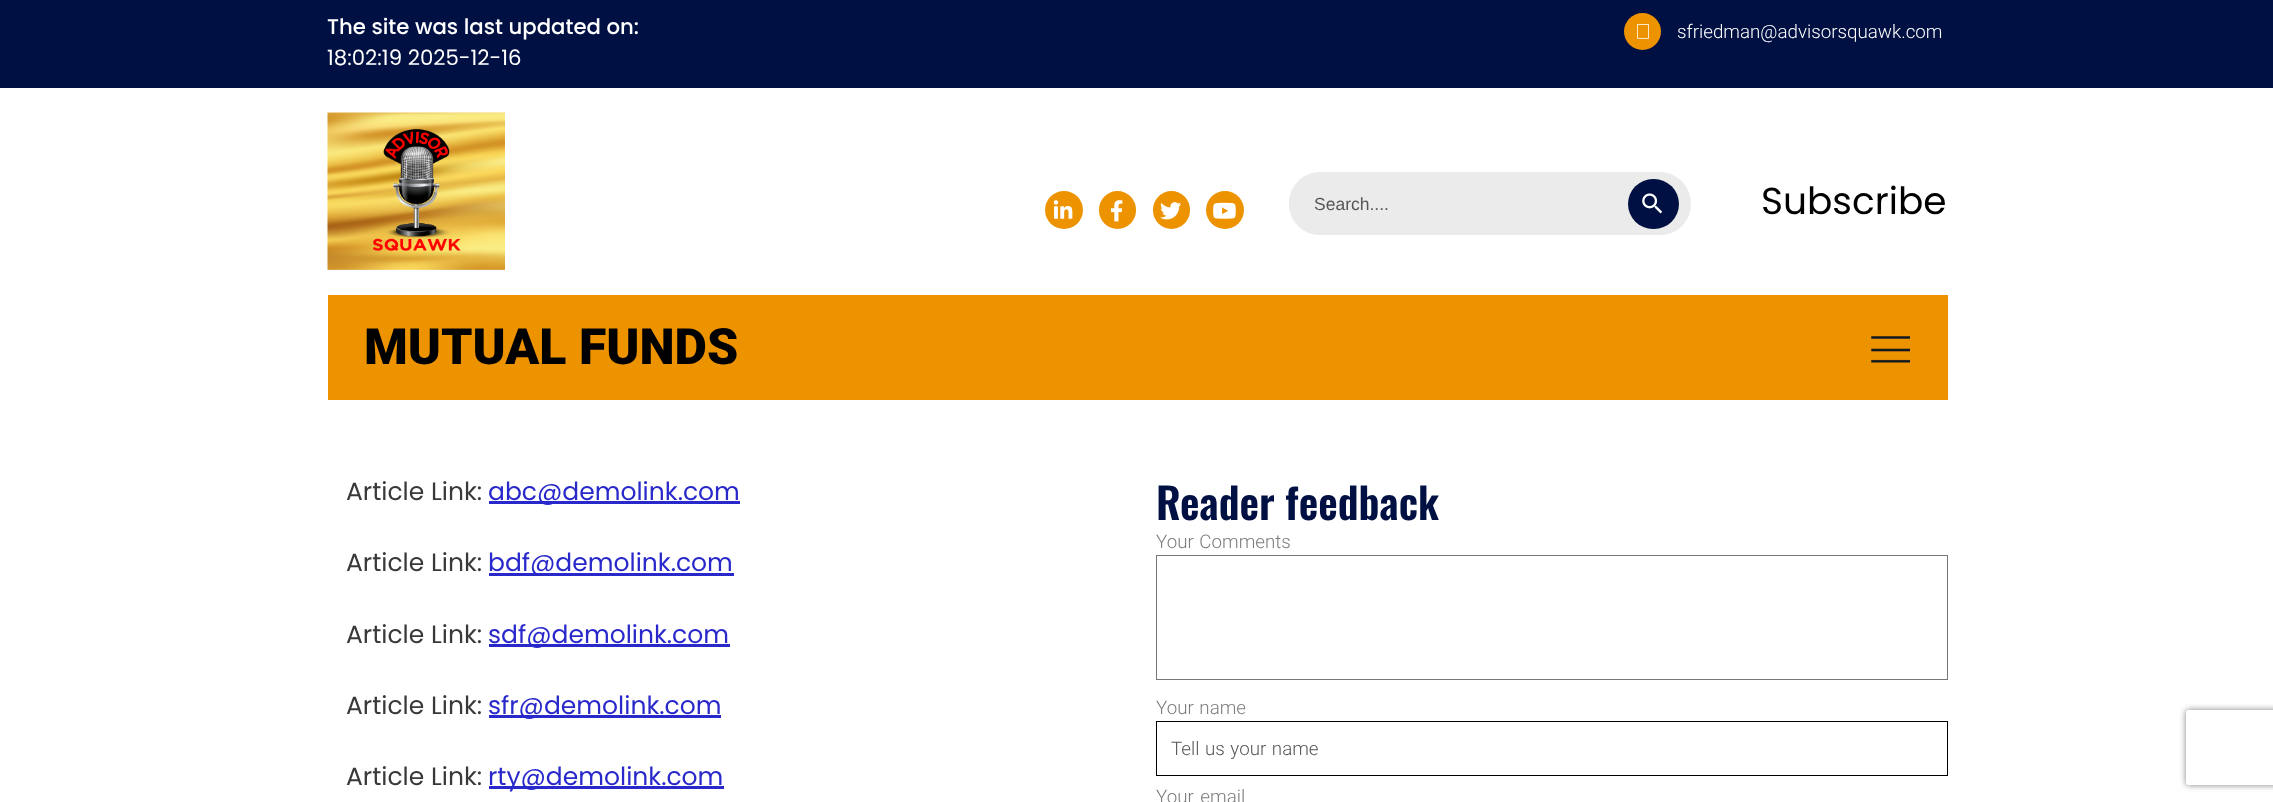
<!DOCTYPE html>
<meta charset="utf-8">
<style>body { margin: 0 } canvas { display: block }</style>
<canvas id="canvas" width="2273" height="802"></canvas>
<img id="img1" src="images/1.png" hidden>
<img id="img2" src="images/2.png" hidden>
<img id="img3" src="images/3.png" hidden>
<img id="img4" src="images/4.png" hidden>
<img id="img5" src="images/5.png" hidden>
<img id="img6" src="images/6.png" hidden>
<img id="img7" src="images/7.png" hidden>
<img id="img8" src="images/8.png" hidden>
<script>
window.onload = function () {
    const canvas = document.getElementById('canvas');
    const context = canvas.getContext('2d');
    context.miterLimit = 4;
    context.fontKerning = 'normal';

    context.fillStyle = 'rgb(255, 255, 255)';
    context.fillRect(0, 0, 2273, 802);
    context.fillStyle = 'rgb(0, 16, 67)';
    context.fillRect(0, 0, 2273, 88);
    context.fillStyle = 'rgb(238, 147, 0)';
    context.beginPath();
    context.arc(1642.5, 31.5, 18.5, 0, 2 * Math.PI);
    context.fill();
    context.drawImage(document.getElementById('img1'), 1637, 24, 12, 15);
    context.drawImage(document.getElementById('img2'), 327, 112, 178, 158);
    context.beginPath();
    context.arc(1064, 210, 19, 0, 2 * Math.PI);
    context.fill();
    context.drawImage(document.getElementById('img3'), 1053, 200, 20, 19);
    context.beginPath();
    context.roundRect(1099, 191, 37, 38, 18.5);
    context.fill();
    context.drawImage(document.getElementById('img4'), 1110, 200, 13, 22);
    context.beginPath();
    context.roundRect(1153, 191, 37, 38, 18.5);
    context.fill();
    context.drawImage(document.getElementById('img5'), 1160, 202, 22, 18);
    context.beginPath();
    context.arc(1225, 210, 19, 0, 2 * Math.PI);
    context.fill();
    context.drawImage(document.getElementById('img6'), 1213, 202, 23, 17);
    context.fillStyle = 'rgb(235, 235, 235)';
    context.beginPath();
    context.roundRect(1289, 173, 402, 62, 31);
    context.fill();
    context.beginPath();
    context.moveTo(1320, 172);
    context.lineTo(1660, 172);
    context.bezierCurveTo(1677, 172, 1691, 186, 1691, 204);
    context.bezierCurveTo(1691, 221, 1677, 235, 1660, 235);
    context.lineTo(1320, 235);
    context.bezierCurveTo(1303, 235, 1289, 221, 1289, 204);
    context.bezierCurveTo(1289, 186, 1303, 172, 1320, 172);
    context.closePath();
    context.moveTo(1320, 174);
    context.lineTo(1660, 174);
    context.bezierCurveTo(1677, 174, 1691, 187, 1691, 204);
    context.bezierCurveTo(1691, 220, 1677, 234, 1660, 234);
    context.lineTo(1320, 234);
    context.bezierCurveTo(1303, 234, 1290, 220, 1290, 204);
    context.bezierCurveTo(1290, 187, 1303, 174, 1320, 174);
    context.closePath();
    context.fill('evenodd');
    context.fillStyle = 'rgb(0, 16, 67)';
    context.beginPath();
    context.roundRect(1628, 179, 51, 50, 25);
    context.fill();
    context.drawImage(document.getElementById('img7'), 1642, 193, 21, 21);
    context.fillStyle = 'rgb(238, 147, 0)';
    context.fillRect(328, 295, 1620, 105);
    context.drawImage(document.getElementById('img8'), 1871, 336, 39, 27);
    context.fillStyle = 'rgb(41, 41, 203)';
    context.fillRect(489, 501, 251, 3);
    context.fillRect(489, 573, 245, 3);
    context.fillRect(489, 644, 241, 3);
    context.fillRect(489, 715, 232, 3);
    context.fillRect(489, 786, 235, 3);
    context.strokeStyle = 'rgb(118, 118, 118)';
    context.strokeRect(1156.5, 555.5, 791, 124);
    context.strokeStyle = 'rgb(0, 0, 0)';
    context.strokeRect(1156.5, 721.5, 791, 54);
    context.save();
    context.beginPath();
    context.moveTo(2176, 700);
    context.lineTo(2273, 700);
    context.lineTo(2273, 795);
    context.lineTo(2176, 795);
    context.closePath();
    context.moveTo(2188.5, 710);
    context.lineTo(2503.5, 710);
    context.bezierCurveTo(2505, 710, 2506, 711, 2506, 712.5);
    context.lineTo(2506, 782.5);
    context.bezierCurveTo(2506, 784, 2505, 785, 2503.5, 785);
    context.lineTo(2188.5, 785);
    context.bezierCurveTo(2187, 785, 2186, 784, 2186, 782.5);
    context.lineTo(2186, 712.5);
    context.bezierCurveTo(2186, 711, 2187, 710, 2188.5, 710);
    context.closePath();
    context.clip('evenodd');
    context.fillStyle = 'rgb(128, 128, 128)';
    context.filter = 'blur(3px)';
    context.beginPath();
    context.roundRect(2186, 710, 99, 75, 2.5);
    context.fill();
    context.filter = 'none';
    context.restore();
    context.font = '500 21.25px Poppins';
    context.fillStyle = 'rgb(255, 255, 255)';
    context.fillText('The site was last updated on:', 327, 34);
    context.font = '21.25px Poppins';
    context.fillText('18:02:19 2025-12-16', 327, 65);
    context.font = '300 18.75px Roboto';
    context.fillText('sfriedman@advisorsquawk.com', 1677, 38);
    context.font = '17.5px Liberation Sans';
    context.fillStyle = 'rgb(87, 87, 87)';
    context.fillText('Search....', 1314, 210);
    context.font = '37.5px Poppins';
    context.fillStyle = 'rgb(0, 0, 0)';
    context.fillText('Subscribe', 1761, 214);
    context.font = '900 50px Roboto';
    context.fillText('MUTUAL FUNDS', 364, 364);
    context.font = '25px Poppins';
    context.fillStyle = 'rgb(57, 57, 57)';
    context.fillText('Article Link:', 346, 500);
    context.fillStyle = 'rgb(41, 41, 203)';
    context.fillText('abc@demolink.com', 488, 500);
    context.fillStyle = 'rgb(57, 57, 57)';
    context.fillText('Article Link:', 346, 571);
    context.fillStyle = 'rgb(41, 41, 203)';
    context.fillText('bdf@demolink.com', 488, 571);
    context.fillStyle = 'rgb(57, 57, 57)';
    context.fillText('Article Link:', 346, 643);
    context.fillStyle = 'rgb(41, 41, 203)';
    context.fillText('sdf@demolink.com', 488, 643);
    context.fillStyle = 'rgb(57, 57, 57)';
    context.fillText('Article Link:', 346, 714);
    context.fillStyle = 'rgb(41, 41, 203)';
    context.fillText('sfr@demolink.com', 488, 714);
    context.fillStyle = 'rgb(57, 57, 57)';
    context.fillText('Article Link:', 346, 785);
    context.fillStyle = 'rgb(41, 41, 203)';
    context.fillText('rty@demolink.com', 488, 785);
    context.font = '600 42.5px Oswald';
    context.fillStyle = 'rgb(0, 16, 67)';
    context.fillText('Reader feedback', 1156, 520);
    context.wordSpacing = '1px';
    context.font = '300 18.75px Roboto';
    context.fillStyle = 'rgb(124, 124, 124)';
    context.fillText('Your Comments', 1156, 548);
    context.fillText('Your name', 1156, 714);
    context.fillStyle = 'rgb(87, 87, 87)';
    context.fillText('Tell us your name', 1171, 755);
    context.wordSpacing = '2px';
    context.fillStyle = 'rgb(124, 124, 124)';
    context.fillText('Your email', 1156, 803);
};
</script>
